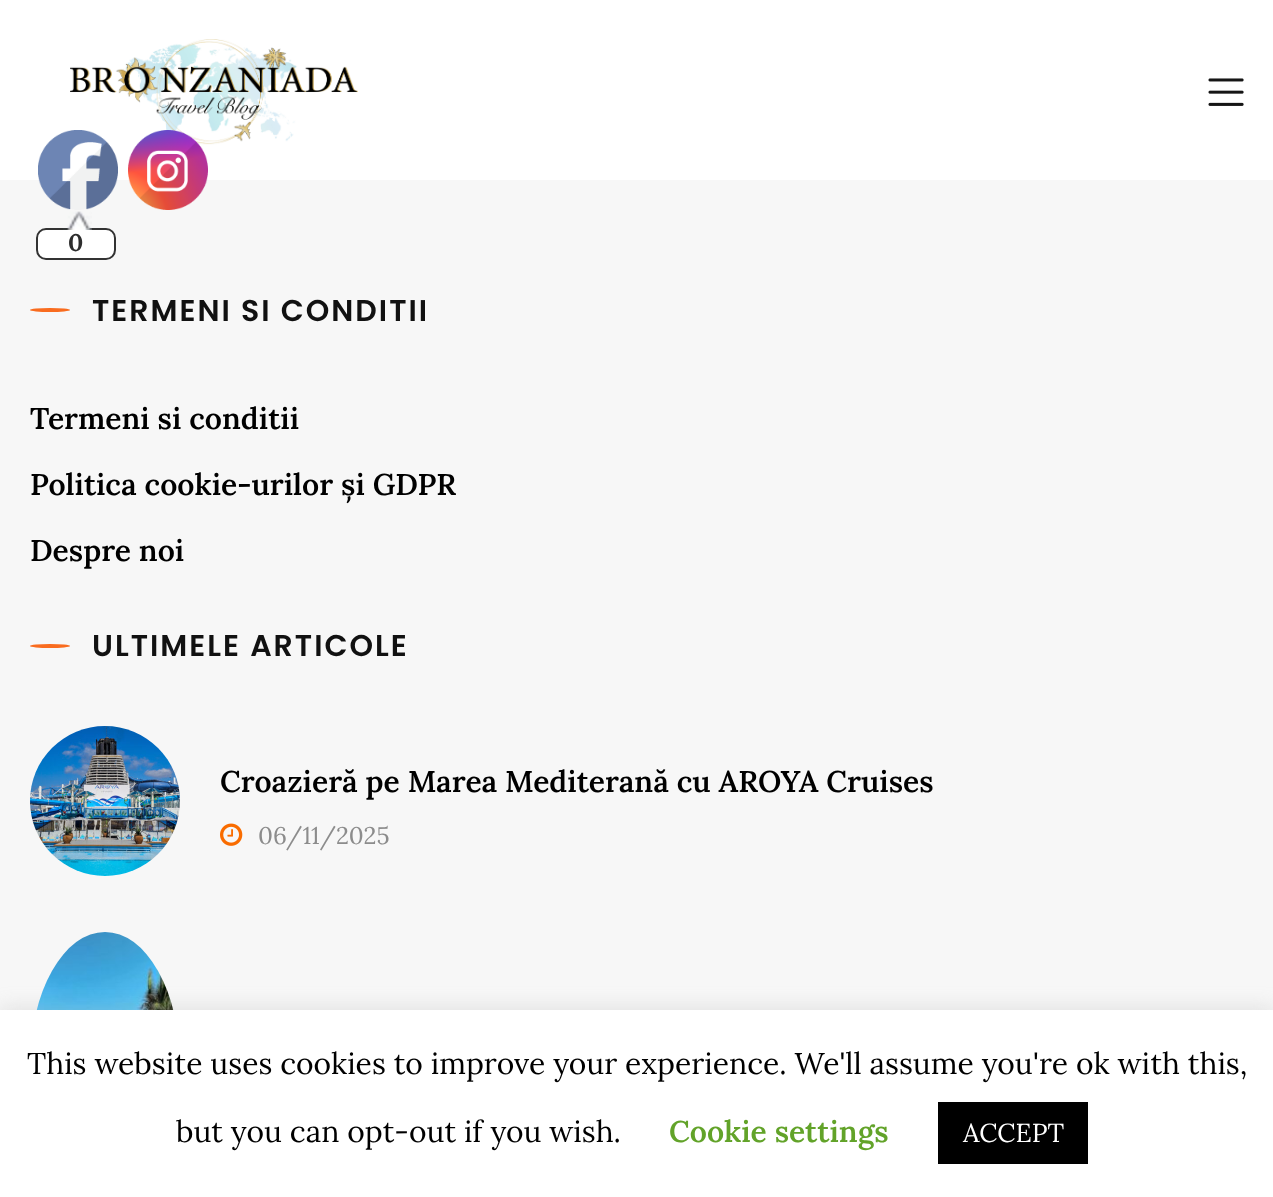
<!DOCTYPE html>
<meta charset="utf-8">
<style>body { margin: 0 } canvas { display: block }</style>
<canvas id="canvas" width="1273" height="1197"></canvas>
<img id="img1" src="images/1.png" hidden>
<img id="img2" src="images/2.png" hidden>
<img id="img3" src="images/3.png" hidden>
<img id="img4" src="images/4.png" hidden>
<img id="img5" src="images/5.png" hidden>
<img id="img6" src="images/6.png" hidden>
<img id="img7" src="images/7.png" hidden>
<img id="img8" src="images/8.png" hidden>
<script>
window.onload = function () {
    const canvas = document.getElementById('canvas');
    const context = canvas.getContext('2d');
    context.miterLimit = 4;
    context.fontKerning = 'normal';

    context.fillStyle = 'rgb(247, 247, 247)';
    context.fillRect(0, 0, 1273, 1197);
    context.fillStyle = 'rgb(255, 255, 255)';
    context.fillRect(0, 0, 1273, 180);
    context.drawImage(document.getElementById('img1'), 70, 39, 288, 107);
    context.drawImage(document.getElementById('img2'), 1208, 78, 36, 28);
    context.drawImage(document.getElementById('img3'), 128, 130, 80, 80);
    context.drawImage(document.getElementById('img4'), 38, 130, 80, 80);
    context.beginPath();
    context.roundRect(37, 229, 78, 30, 9);
    context.fill();
    context.strokeStyle = 'rgb(51, 51, 51)';
    context.lineWidth = 2;
    context.stroke();
    context.drawImage(document.getElementById('img5'), 63, 211, 29, 19);
    context.fillStyle = 'rgb(249, 108, 31)';
    context.beginPath();
    context.ellipse(50, 310, 20, 2, 0, 0, 2 * Math.PI);
    context.fill();
    context.beginPath();
    context.ellipse(50, 646, 20, 2, 0, 0, 2 * Math.PI);
    context.fill();
    context.drawImage(document.getElementById('img6'), 30, 726, 150, 150);
    context.drawImage(document.getElementById('img7'), 220, 823, 23, 23);
    context.drawImage(document.getElementById('img8'), 36, 932, 138, 78);
    context.fillStyle = 'rgba(172, 171, 171, 0.3)';
    context.filter = 'blur(10px)';
    context.beginPath();
    context.rect(0, 1008, 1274, 188);
    context.fill();
    context.filter = 'none';
    context.fillStyle = 'rgb(255, 255, 255)';
    context.fillRect(0, 1010, 1273, 187);
    context.fillStyle = 'rgb(0, 0, 0)';
    context.fillRect(938, 1102, 150, 62);
    context.font = 'bold 24px Lora';
    context.fillStyle = 'rgb(45, 45, 45)';
    context.fillText('0', 68, 251);
    context.letterSpacing = '2px';
    context.font = '600 30px Poppins';
    context.fillStyle = 'rgb(17, 17, 17)';
    context.fillText('TERMENI SI CONDITII', 92, 321);
    context.letterSpacing = '0px';
    context.font = '600 30px Lora';
    context.fillStyle = 'rgb(0, 0, 0)';
    context.fillText('Termeni si conditii', 30, 429);
    context.fillText('Politica cookie-urilor și GDPR', 30, 495);
    context.fillText('Despre noi', 30, 561);
    context.letterSpacing = '2px';
    context.font = '600 30px Poppins';
    context.fillStyle = 'rgb(17, 17, 17)';
    context.fillText('ULTIMELE ARTICOLE', 92, 656);
    context.letterSpacing = '0px';
    context.font = '600 30px Lora';
    context.fillStyle = 'rgb(0, 0, 0)';
    context.fillText('Croazieră pe Marea Mediterană cu AROYA Cruises', 220, 792);
    context.font = '24px Lora';
    context.fillStyle = 'rgb(140, 140, 140)';
    context.fillText('06/11/2025', 258, 844);
    context.font = '30px Lora';
    context.fillStyle = 'rgb(0, 0, 0)';
    context.fillText('This website uses cookies to improve your experience. We\'ll assume you\'re ok with this,', 27, 1074);
    context.fillText('but you can opt-out if you wish.', 176, 1142);
    context.font = '600 30px Lora';
    context.fillStyle = 'rgb(98, 163, 41)';
    context.fillText('Cookie settings', 669, 1142);
    context.font = '26px Lora';
    context.fillStyle = 'rgb(255, 255, 255)';
    context.fillText('ACCEPT', 963, 1142);
};
</script>
